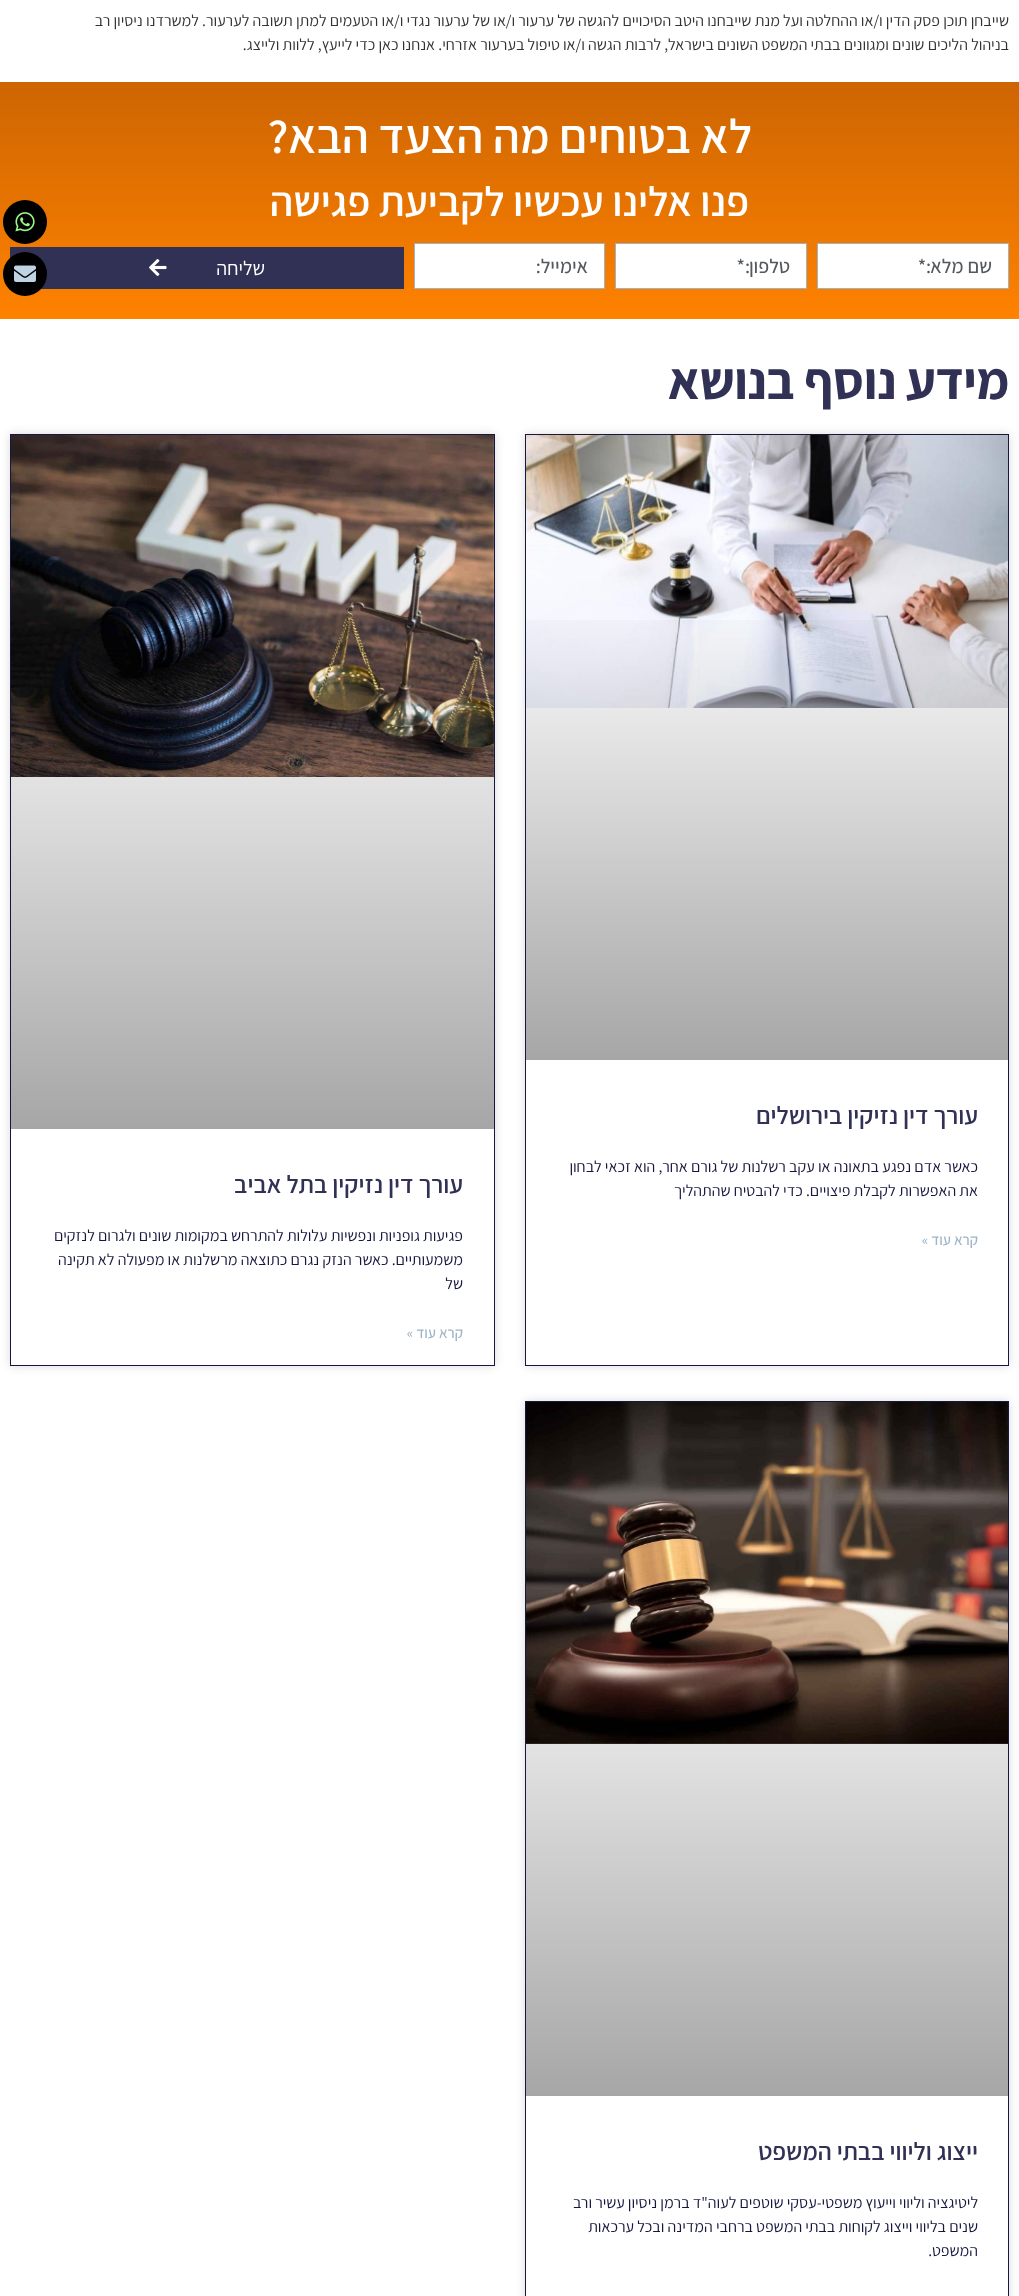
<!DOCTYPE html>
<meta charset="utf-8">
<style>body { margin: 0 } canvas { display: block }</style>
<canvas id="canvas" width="1019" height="2296"></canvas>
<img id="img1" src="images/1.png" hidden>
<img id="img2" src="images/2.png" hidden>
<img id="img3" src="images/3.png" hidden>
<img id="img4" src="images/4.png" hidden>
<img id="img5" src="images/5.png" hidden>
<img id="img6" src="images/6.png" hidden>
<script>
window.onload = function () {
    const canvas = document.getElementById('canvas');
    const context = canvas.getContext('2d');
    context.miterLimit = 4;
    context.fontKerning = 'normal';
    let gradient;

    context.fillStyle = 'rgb(255, 255, 255)';
    context.fillRect(0, 0, 1019, 2296);
    gradient = context.createLinearGradient(510, 82, 510, 319);
    gradient.addColorStop(0, 'rgb(205, 101, 2)');
    gradient.addColorStop(1, 'rgb(255, 130, 0)');
    context.fillStyle = gradient;
    context.fillRect(0, 82, 1019, 237);
    context.fillStyle = 'rgb(255, 255, 255)';
    context.beginPath();
    context.roundRect(817.5, 243.5, 191, 45, [0, 0, 0.5, 0]);
    context.fill();
    context.strokeStyle = 'rgb(158, 180, 198)';
    context.stroke();
    context.beginPath();
    context.roundRect(615.5, 243.5, 191, 45, [0, 0, 0.5, 0]);
    context.fill();
    context.stroke();
    context.beginPath();
    context.roundRect(414.5, 243.5, 190, 45, [0, 0, 0.5, 0]);
    context.fill();
    context.stroke();
    context.fillStyle = 'rgb(48, 49, 85)';
    context.fillRect(10, 247, 394, 42);
    context.drawImage(document.getElementById('img1'), 149, 259, 18, 17);
    context.save();
    context.beginPath();
    context.moveTo(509, 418);
    context.lineTo(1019, 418);
    context.lineTo(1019, 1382);
    context.lineTo(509, 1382);
    context.closePath();
    context.moveTo(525, 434);
    context.lineTo(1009, 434);
    context.lineTo(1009, 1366);
    context.lineTo(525, 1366);
    context.closePath();
    context.clip('evenodd');
    context.fillStyle = 'rgba(0, 0, 0, 0.15)';
    context.filter = 'blur(5px)';
    context.beginPath();
    context.rect(525, 434, 484, 932);
    context.fill();
    context.filter = 'none';
    context.restore();
    context.strokeStyle = 'rgb(22, 22, 63)';
    context.strokeRect(525.5, 434.5, 483, 931);
    context.drawImage(document.getElementById('img2'), 526, 435, 482, 273);
    gradient = context.createLinearGradient(767, 1060, 767, 435);
    gradient.addColorStop(0, 'rgba(0, 0, 0, 0.35)');
    gradient.addColorStop(0.75, 'rgba(0, 0, 0, 0)');
    context.fillStyle = gradient;
    context.fillRect(526, 620, 482, 440);
    context.save();
    context.beginPath();
    context.moveTo(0, 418);
    context.lineTo(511, 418);
    context.lineTo(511, 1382);
    context.lineTo(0, 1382);
    context.closePath();
    context.moveTo(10, 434);
    context.lineTo(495, 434);
    context.lineTo(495, 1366);
    context.lineTo(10, 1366);
    context.closePath();
    context.clip('evenodd');
    context.fillStyle = 'rgba(0, 0, 0, 0.15)';
    context.filter = 'blur(5px)';
    context.beginPath();
    context.rect(10, 434, 485, 932);
    context.fill();
    context.filter = 'none';
    context.restore();
    context.strokeRect(10.5, 434.5, 484, 931);
    context.drawImage(document.getElementById('img3'), 11, 435, 483, 342);
    gradient = context.createLinearGradient(253, 1129, 253, 435);
    gradient.addColorStop(0, 'rgba(0, 0, 0, 0.35)');
    gradient.addColorStop(0.75, 'rgba(0, 0, 0, 0)');
    context.fillStyle = gradient;
    context.fillRect(11, 641, 483, 488);
    context.save();
    context.beginPath();
    context.moveTo(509, 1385);
    context.lineTo(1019, 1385);
    context.lineTo(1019, 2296);
    context.lineTo(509, 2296);
    context.closePath();
    context.moveTo(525, 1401);
    context.lineTo(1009, 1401);
    context.lineTo(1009, 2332);
    context.lineTo(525, 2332);
    context.closePath();
    context.clip('evenodd');
    context.fillStyle = 'rgba(0, 0, 0, 0.15)';
    context.filter = 'blur(5px)';
    context.beginPath();
    context.rect(525, 1401, 484, 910);
    context.fill();
    context.filter = 'none';
    context.restore();
    context.strokeRect(525.5, 1401.5, 483, 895);
    context.drawImage(document.getElementById('img4'), 526, 1402, 482, 342);
    gradient = context.createLinearGradient(767, 2096, 767, 1402);
    gradient.addColorStop(0, 'rgba(0, 0, 0, 0.35)');
    gradient.addColorStop(0.75, 'rgba(0, 0, 0, 0)');
    context.fillStyle = gradient;
    context.fillRect(526, 1608, 482, 488);
    context.fillStyle = 'rgb(0, 0, 0)';
    context.beginPath();
    context.arc(25, 222, 22, 0, 2 * Math.PI);
    context.fill();
    context.drawImage(document.getElementById('img5'), 15, 212, 20, 20);
    context.beginPath();
    context.arc(25, 274, 22, 0, 2 * Math.PI);
    context.fill();
    context.drawImage(document.getElementById('img6'), 14, 265, 22, 17);
    context.direction = 'rtl';
    context.font = '16px Assistant';
    context.fillStyle = 'rgb(51, 51, 51)';
    context.fillText('שייבחן תוכן פסק הדין ו/או ההחלטה ועל מנת שייבחנו היטב הסיכויים להגשה של ערעור ו/או של ערעור נגדי ו/או הטעמים למתן תשובה לערעור. למשרדנו ניסיון רב', 1009, 26);
    context.fillText('בניהול הליכים שונים ומגוונים בבתי המשפט השונים בישראל, לרבות הגשה ו/או טיפול בערעור אזרחי. אנחנו כאן כדי לייעץ, ללוות ולייצג.', 1009, 50);
    context.font = '600 48px Assistant';
    context.fillStyle = 'rgb(255, 255, 255)';
    context.fillText('לא בטוחים מה הצעד הבא?', 752, 153);
    context.font = '600 42px Assistant';
    context.fillText('פנו אלינו עכשיו לקביעת פגישה', 749, 216);
    context.font = '500 20px Assistant';
    context.fillStyle = 'rgb(84, 89, 95)';
    context.fillText('שם מלא:*', 992, 273);
    context.fillText('טלפון:*', 790, 273);
    context.fillText('אימייל:', 588, 273);
    context.font = '20px Assistant';
    context.fillStyle = 'rgb(255, 255, 255)';
    context.fillText('שליחה', 265, 275);
    context.letterSpacing = '-0.5px';
    context.font = 'bold 52px Assistant';
    context.fillStyle = 'rgb(48, 49, 85)';
    context.fillText('מידע נוסף בנושא', 1009, 399);
    context.letterSpacing = '0px';
    context.font = '600 25px Assistant';
    context.fillText('עורך דין נזיקין בירושלים', 978, 1124);
    context.font = '16px Assistant';
    context.fillStyle = 'rgb(22, 22, 63)';
    context.fillText('כאשר אדם נפגע בתאונה או עקב רשלנות של גורם אחר, הוא זכאי לבחון', 978, 1172);
    context.fillText('את האפשרות לקבלת פיצויים. כדי להבטיח שהתהליך', 978, 1196);
    context.font = '500 15px Assistant';
    context.fillStyle = 'rgb(158, 180, 198)';
    context.fillText('קרא עוד »', 978, 1245);
    context.font = '600 25px Assistant';
    context.fillStyle = 'rgb(48, 49, 85)';
    context.fillText('עורך דין נזיקין בתל אביב', 463, 1193);
    context.font = '16px Assistant';
    context.fillStyle = 'rgb(22, 22, 63)';
    context.fillText('פגיעות גופניות ונפשיות עלולות להתרחש במקומות שונים ולגרום לנזקים', 463, 1241);
    context.fillText('משמעותיים. כאשר הנזק נגרם כתוצאה מרשלנות או מפעולה לא תקינה', 463, 1265);
    context.fillText('של', 463, 1289);
    context.font = '500 15px Assistant';
    context.fillStyle = 'rgb(158, 180, 198)';
    context.fillText('קרא עוד »', 463, 1338);
    context.font = '600 25px Assistant';
    context.fillStyle = 'rgb(48, 49, 85)';
    context.fillText('ייצוג וליווי בבתי המשפט', 978, 2160);
    context.font = '16px Assistant';
    context.fillStyle = 'rgb(22, 22, 63)';
    context.fillText('ליטיגציה וליווי וייעוץ משפטי-עסקי שוטפים לעוה"ד ברמן ניסיון עשיר ורב', 978, 2208);
    context.fillText('שנים בליווי וייצוג לקוחות בבתי המשפט ברחבי המדינה ובכל ערכאות', 978, 2232);
    context.fillText('המשפט.', 978, 2256);
};
</script>
